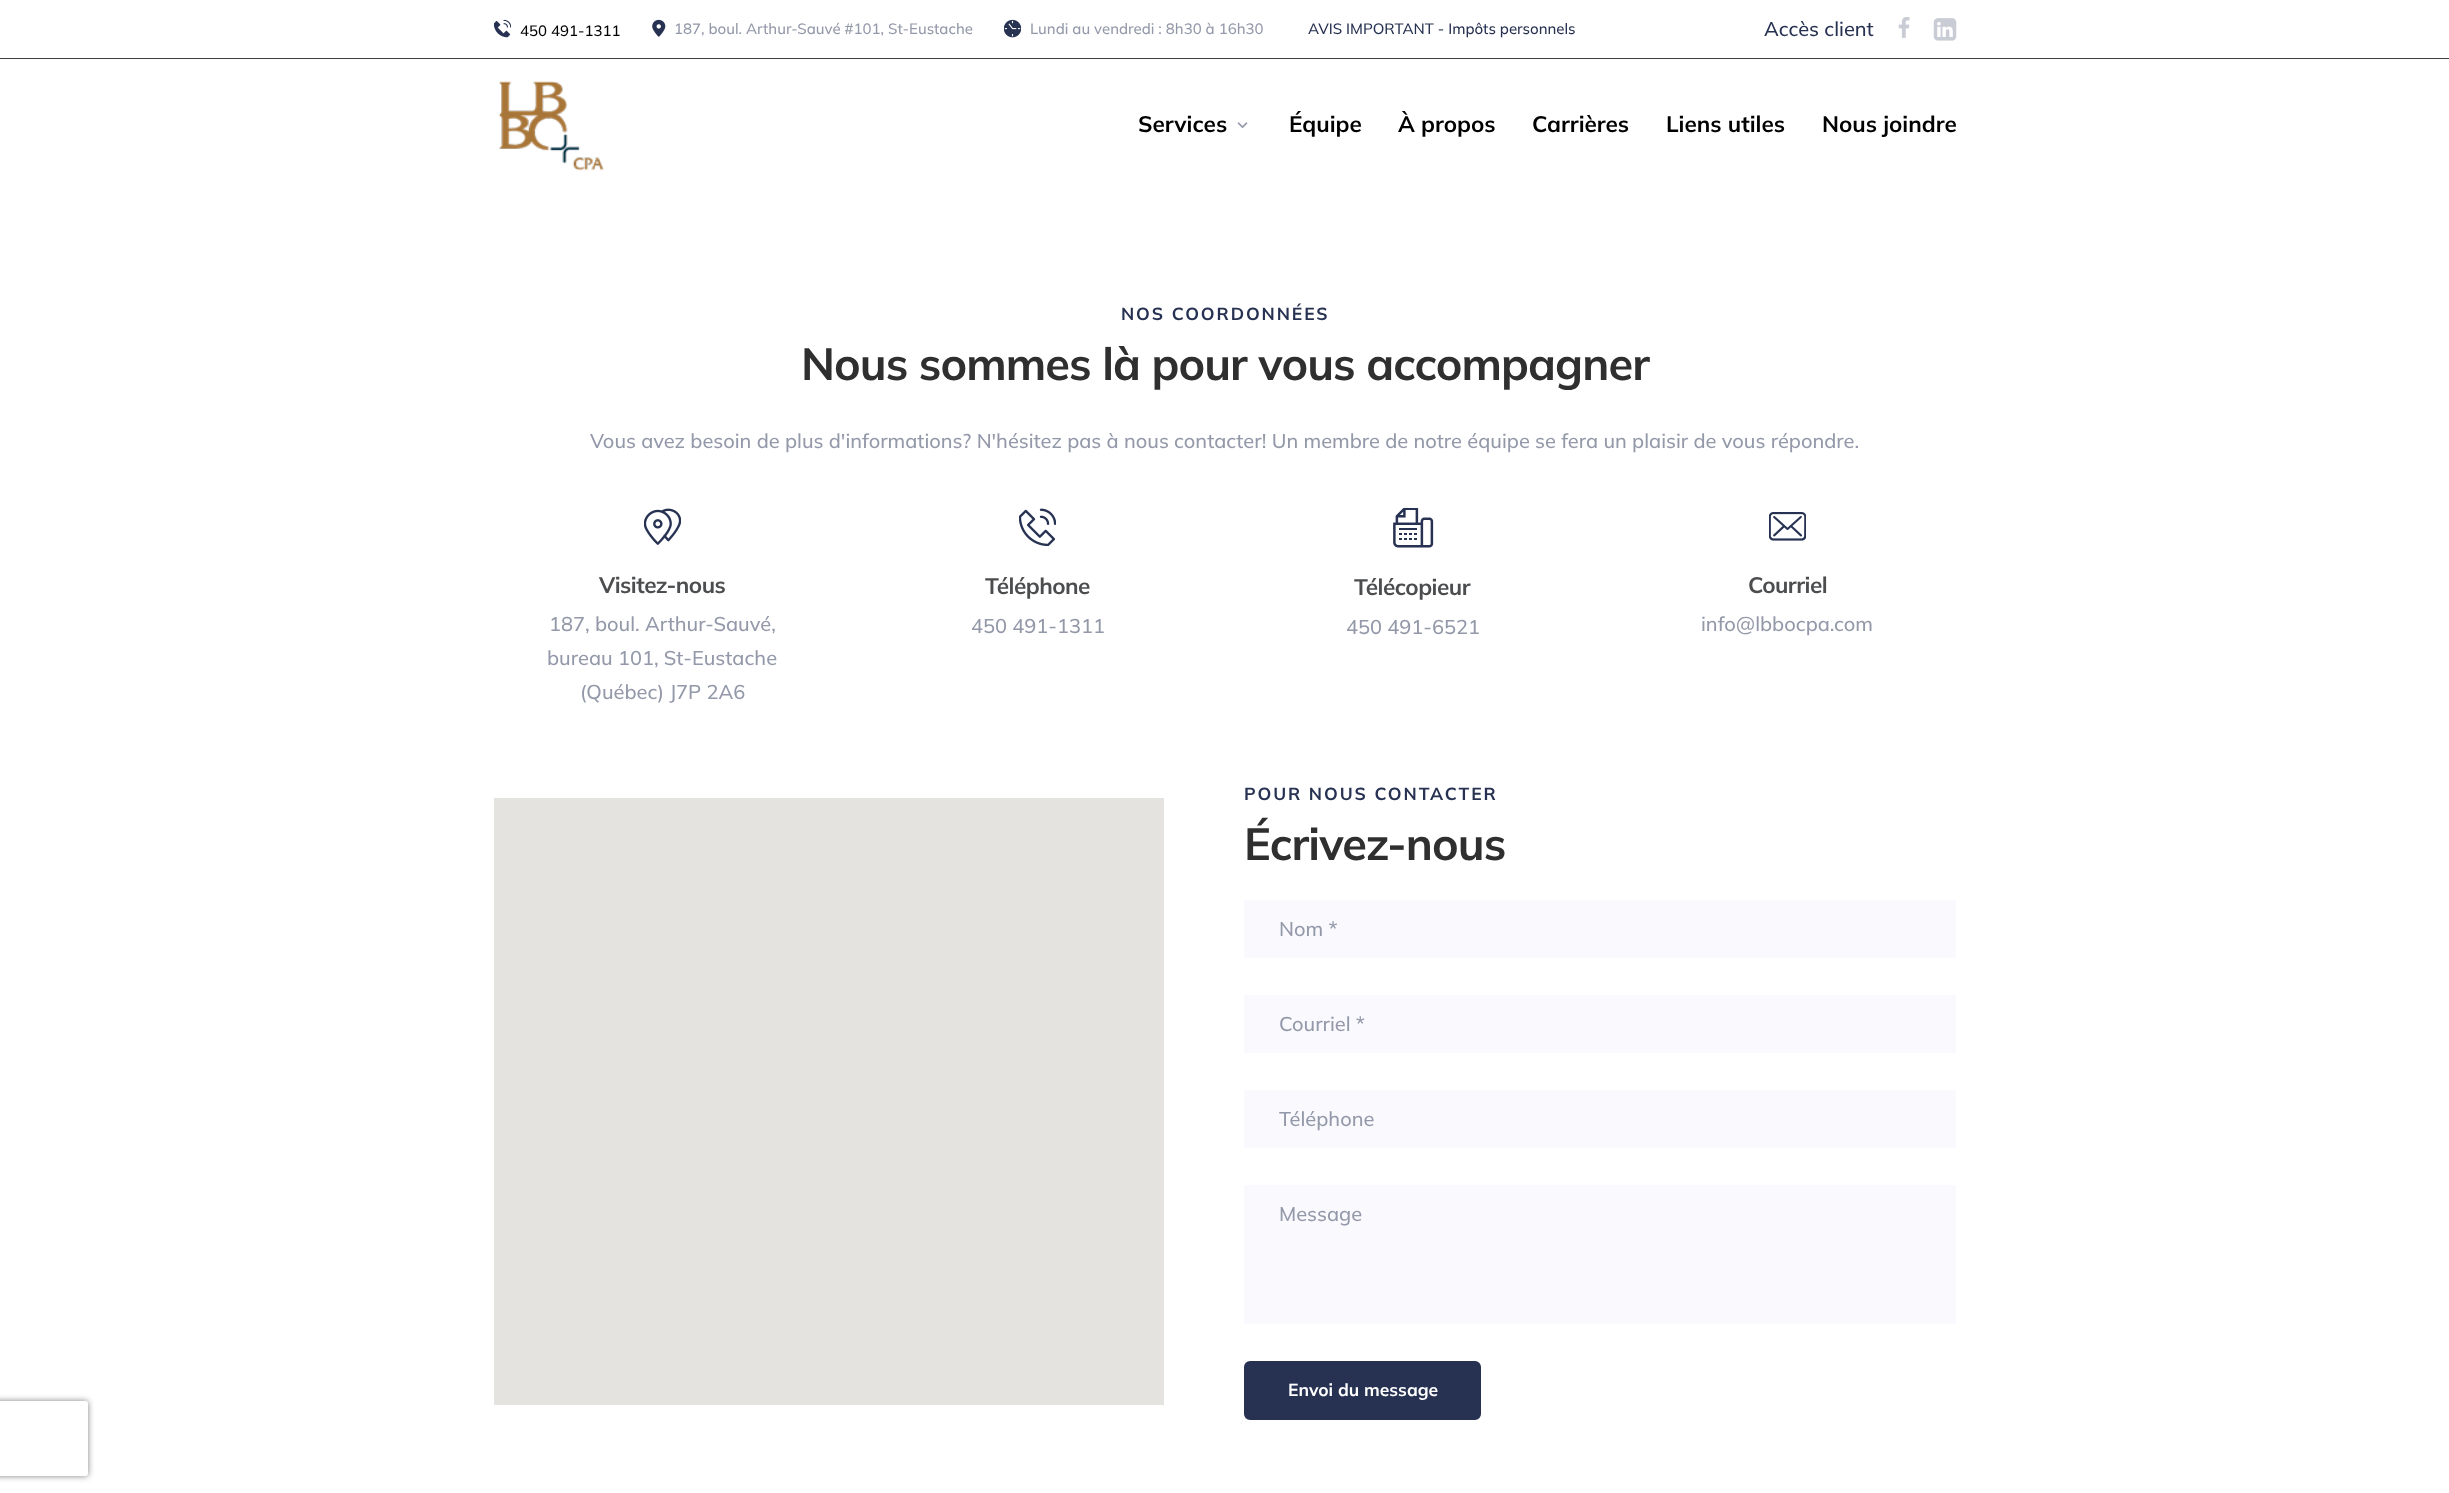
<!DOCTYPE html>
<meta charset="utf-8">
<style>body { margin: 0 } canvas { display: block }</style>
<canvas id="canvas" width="2449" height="1493"></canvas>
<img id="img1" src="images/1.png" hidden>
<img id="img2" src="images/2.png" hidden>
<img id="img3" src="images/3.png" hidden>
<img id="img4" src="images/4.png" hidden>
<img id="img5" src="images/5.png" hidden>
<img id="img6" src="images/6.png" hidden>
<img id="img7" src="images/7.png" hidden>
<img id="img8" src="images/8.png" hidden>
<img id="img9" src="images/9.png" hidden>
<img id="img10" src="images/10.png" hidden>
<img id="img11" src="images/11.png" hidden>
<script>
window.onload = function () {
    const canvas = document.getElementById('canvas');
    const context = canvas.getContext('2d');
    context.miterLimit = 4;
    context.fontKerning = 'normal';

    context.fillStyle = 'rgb(255, 255, 255)';
    context.fillRect(0, 0, 2449, 1493);
    context.fillStyle = 'rgb(63, 63, 63)';
    context.fillRect(0, 58, 2449, 1);
    context.drawImage(document.getElementById('img1'), 494, 19, 17, 19);
    context.drawImage(document.getElementById('img2'), 652, 19, 14, 18);
    context.drawImage(document.getElementById('img3'), 1004, 19, 17, 19);
    context.drawImage(document.getElementById('img4'), 1898, 17, 12, 21);
    context.drawImage(document.getElementById('img5'), 1933, 18, 24, 23);
    context.drawImage(document.getElementById('img6'), 498, 81, 106, 90);
    context.drawImage(document.getElementById('img7'), 1237, 122, 11, 7);
    context.drawImage(document.getElementById('img8'), 644, 508, 37, 37);
    context.drawImage(document.getElementById('img9'), 1019, 508, 37, 38);
    context.drawImage(document.getElementById('img10'), 1393, 508, 41, 40);
    context.drawImage(document.getElementById('img11'), 1769, 512, 37, 29);
    context.fillStyle = 'rgb(229, 227, 223)';
    context.fillRect(494, 798, 670, 607);
    context.fillStyle = 'rgb(249, 249, 254)';
    context.fillRect(1244, 900, 712, 58);
    context.fillRect(1244, 995, 712, 58);
    context.fillRect(1244, 1090, 712, 58);
    context.fillRect(1244, 1185, 712, 139);
    context.save();
    context.beginPath();
    context.moveTo(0, 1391);
    context.lineTo(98, 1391);
    context.lineTo(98, 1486);
    context.lineTo(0, 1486);
    context.closePath();
    context.moveTo(-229.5, 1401);
    context.lineTo(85.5, 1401);
    context.bezierCurveTo(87, 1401, 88, 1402, 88, 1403.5);
    context.lineTo(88, 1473.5);
    context.bezierCurveTo(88, 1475, 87, 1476, 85.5, 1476);
    context.lineTo(-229.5, 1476);
    context.bezierCurveTo(-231, 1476, -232, 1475, -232, 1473.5);
    context.lineTo(-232, 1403.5);
    context.bezierCurveTo(-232, 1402, -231, 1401, -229.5, 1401);
    context.closePath();
    context.clip('evenodd');
    context.fillStyle = 'rgb(128, 128, 128)';
    context.filter = 'blur(3px)';
    context.beginPath();
    context.roundRect(-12, 1401, 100, 75, 2.5);
    context.fill();
    context.filter = 'none';
    context.restore();
    context.fillStyle = 'rgb(39, 50, 82)';
    context.beginPath();
    context.roundRect(1245.5, 1362.5, 234, 56, 4.5);
    context.fill();
    context.strokeStyle = 'rgb(39, 50, 82)';
    context.lineWidth = 3;
    context.stroke();
    context.font = '500 15px Mulish';
    context.fillStyle = 'rgb(0, 0, 0)';
    context.fillText('450 491-1311', 520, 36);
    context.fillStyle = 'rgb(147, 153, 169)';
    context.fillText('187, boul. Arthur-Sauvé #101, St-Eustache', 674, 34);
    context.fillText('Lundi au vendredi : 8h30 à 16h30', 1030, 34);
    context.fillStyle = 'rgb(39, 50, 82)';
    context.fillText('AVIS IMPORTANT - Impôts personnels', 1308, 34);
    context.font = '500 20px Mulish';
    context.fillText('Accès client', 1764, 36);
    context.font = 'bold 22.5px Mulish';
    context.fillStyle = 'rgb(0, 0, 0)';
    context.fillText('Services', 1138, 132);
    context.fillText('Équipe', 1289, 132);
    context.fillText('À propos', 1398, 132);
    context.fillText('Carrières', 1532, 132);
    context.fillText('Liens utiles', 1666, 132);
    context.fillText('Nous joindre', 1822, 132);
    context.letterSpacing = '1.9px';
    context.font = 'bold 17.5px Mulish';
    context.fillStyle = 'rgb(39, 50, 82)';
    context.fillText('NOS COORDONNÉES', 1121, 320);
    context.letterSpacing = '-0.9px';
    context.font = 'bold 45px Mulish';
    context.fillStyle = 'rgb(47, 47, 47)';
    context.fillText('Nous sommes là pour vous accompagner', 801, 380);
    context.letterSpacing = '0px';
    context.font = '500 20px Mulish';
    context.fillStyle = 'rgb(147, 153, 169)';
    context.fillText('Vous avez besoin de plus d\'informations? N\'hésitez pas à nous contacter! Un membre de notre équipe se fera un plaisir de vous répondre.', 590, 448);
    context.letterSpacing = '-0.5px';
    context.font = 'bold 22.5px Mulish';
    context.fillStyle = 'rgb(76, 77, 79)';
    context.fillText('Visitez-nous', 599, 593);
    context.letterSpacing = '0px';
    context.font = '500 20px Mulish';
    context.fillStyle = 'rgb(147, 153, 169)';
    context.fillText('187, boul. Arthur-Sauvé,', 549, 631);
    context.fillText('bureau 101, St-Eustache', 547, 665);
    context.fillText('(Québec) J7P 2A6', 580, 699);
    context.letterSpacing = '-0.5px';
    context.font = 'bold 22.5px Mulish';
    context.fillStyle = 'rgb(76, 77, 79)';
    context.fillText('Téléphone', 985, 594);
    context.letterSpacing = '0px';
    context.font = '500 20px Mulish';
    context.fillStyle = 'rgb(147, 153, 169)';
    context.fillText('450 491-1311', 971, 633);
    context.letterSpacing = '-0.5px';
    context.font = 'bold 22.5px Mulish';
    context.fillStyle = 'rgb(76, 77, 79)';
    context.fillText('Télécopieur', 1354, 595);
    context.letterSpacing = '0px';
    context.font = '500 20px Mulish';
    context.fillStyle = 'rgb(147, 153, 169)';
    context.fillText('450 491-6521', 1346, 634);
    context.letterSpacing = '-0.5px';
    context.font = 'bold 22.5px Mulish';
    context.fillStyle = 'rgb(76, 77, 79)';
    context.fillText('Courriel', 1748, 593);
    context.letterSpacing = '0px';
    context.font = '500 20px Mulish';
    context.fillStyle = 'rgb(147, 153, 169)';
    context.fillText('info@lbbocpa.com', 1701, 631);
    context.letterSpacing = '1.9px';
    context.font = 'bold 17.5px Mulish';
    context.fillStyle = 'rgb(39, 50, 82)';
    context.fillText('POUR NOUS CONTACTER', 1244, 800);
    context.letterSpacing = '-0.9px';
    context.font = 'bold 45px Mulish';
    context.fillStyle = 'rgb(47, 47, 47)';
    context.fillText('Écrivez-nous', 1244, 860);
    context.letterSpacing = '0px';
    context.font = '500 20px Mulish';
    context.fillStyle = 'rgb(147, 153, 169)';
    context.fillText('Nom *', 1279, 936);
    context.fillText('Courriel *', 1279, 1031);
    context.fillText('Téléphone', 1279, 1126);
    context.fillText('Message', 1279, 1221);
    context.font = 'bold 17.5px Mulish';
    context.fillStyle = 'rgb(255, 255, 255)';
    context.fillText('Envoi du message', 1288, 1396);
};
</script>
